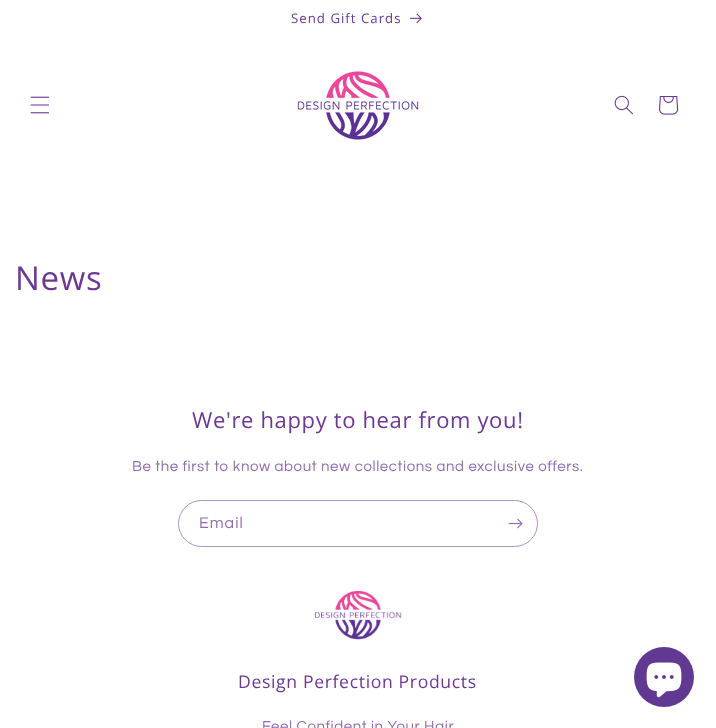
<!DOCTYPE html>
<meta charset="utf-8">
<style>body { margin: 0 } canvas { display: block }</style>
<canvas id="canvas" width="716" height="728"></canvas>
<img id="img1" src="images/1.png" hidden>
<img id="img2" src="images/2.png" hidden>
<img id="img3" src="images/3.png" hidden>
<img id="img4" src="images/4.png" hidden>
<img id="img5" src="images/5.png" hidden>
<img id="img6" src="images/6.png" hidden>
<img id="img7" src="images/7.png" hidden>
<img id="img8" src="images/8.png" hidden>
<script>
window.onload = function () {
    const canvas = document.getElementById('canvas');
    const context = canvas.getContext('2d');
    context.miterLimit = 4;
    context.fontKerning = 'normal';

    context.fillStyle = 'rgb(255, 255, 255)';
    context.fillRect(0, 0, 716, 728);
    context.drawImage(document.getElementById('img1'), 410, 13, 12, 11);
    context.drawImage(document.getElementById('img2'), 30, 96, 20, 18);
    context.drawImage(document.getElementById('img3'), 297, 71, 122, 69);
    context.drawImage(document.getElementById('img4'), 614, 95, 19, 20);
    context.drawImage(document.getElementById('img5'), 659, 96, 20, 19);
    context.beginPath();
    context.roundRect(178.5, 500.5, 359, 46, 23);
    context.strokeStyle = 'rgb(174, 146, 195)';
    context.stroke();
    context.drawImage(document.getElementById('img6'), 508, 518, 15, 11);
    context.drawImage(document.getElementById('img7'), 314, 590, 88, 50);
    context.fillStyle = 'rgb(98, 57, 146)';
    context.beginPath();
    context.arc(664, 677, 30, 0, 2 * Math.PI);
    context.fill();
    context.drawImage(document.getElementById('img8'), 646, 662, 36, 36);
    context.letterSpacing = '1px';
    context.font = '13.25px Open Sans';
    context.fillStyle = 'rgb(107, 57, 146)';
    context.fillText('Send Gift Cards', 291, 23);
    context.letterSpacing = '0.65px';
    context.font = '33px Open Sans';
    context.fillText('News', 15, 290);
    context.font = '22px Open Sans';
    context.fillText('We\'re happy to hear from you!', 192, 428);
    context.letterSpacing = '0.6px';
    context.font = '15px Questrial';
    context.fillStyle = 'rgb(144, 107, 173)';
    context.fillText('Be the first to know about new collections and exclusive offers.', 132, 471);
    context.letterSpacing = '1px';
    context.font = '16px Questrial';
    context.fillText('Email', 199, 528);
    context.letterSpacing = '0.65px';
    context.font = '17.6px Open Sans';
    context.fillStyle = 'rgb(107, 57, 146)';
    context.fillText('Design Perfection Products', 238, 688);
    context.letterSpacing = '0.6px';
    context.font = '15px Questrial';
    context.fillStyle = 'rgb(144, 107, 173)';
    context.fillText('Feel Confident in Your Hair', 262, 731);
};
</script>
